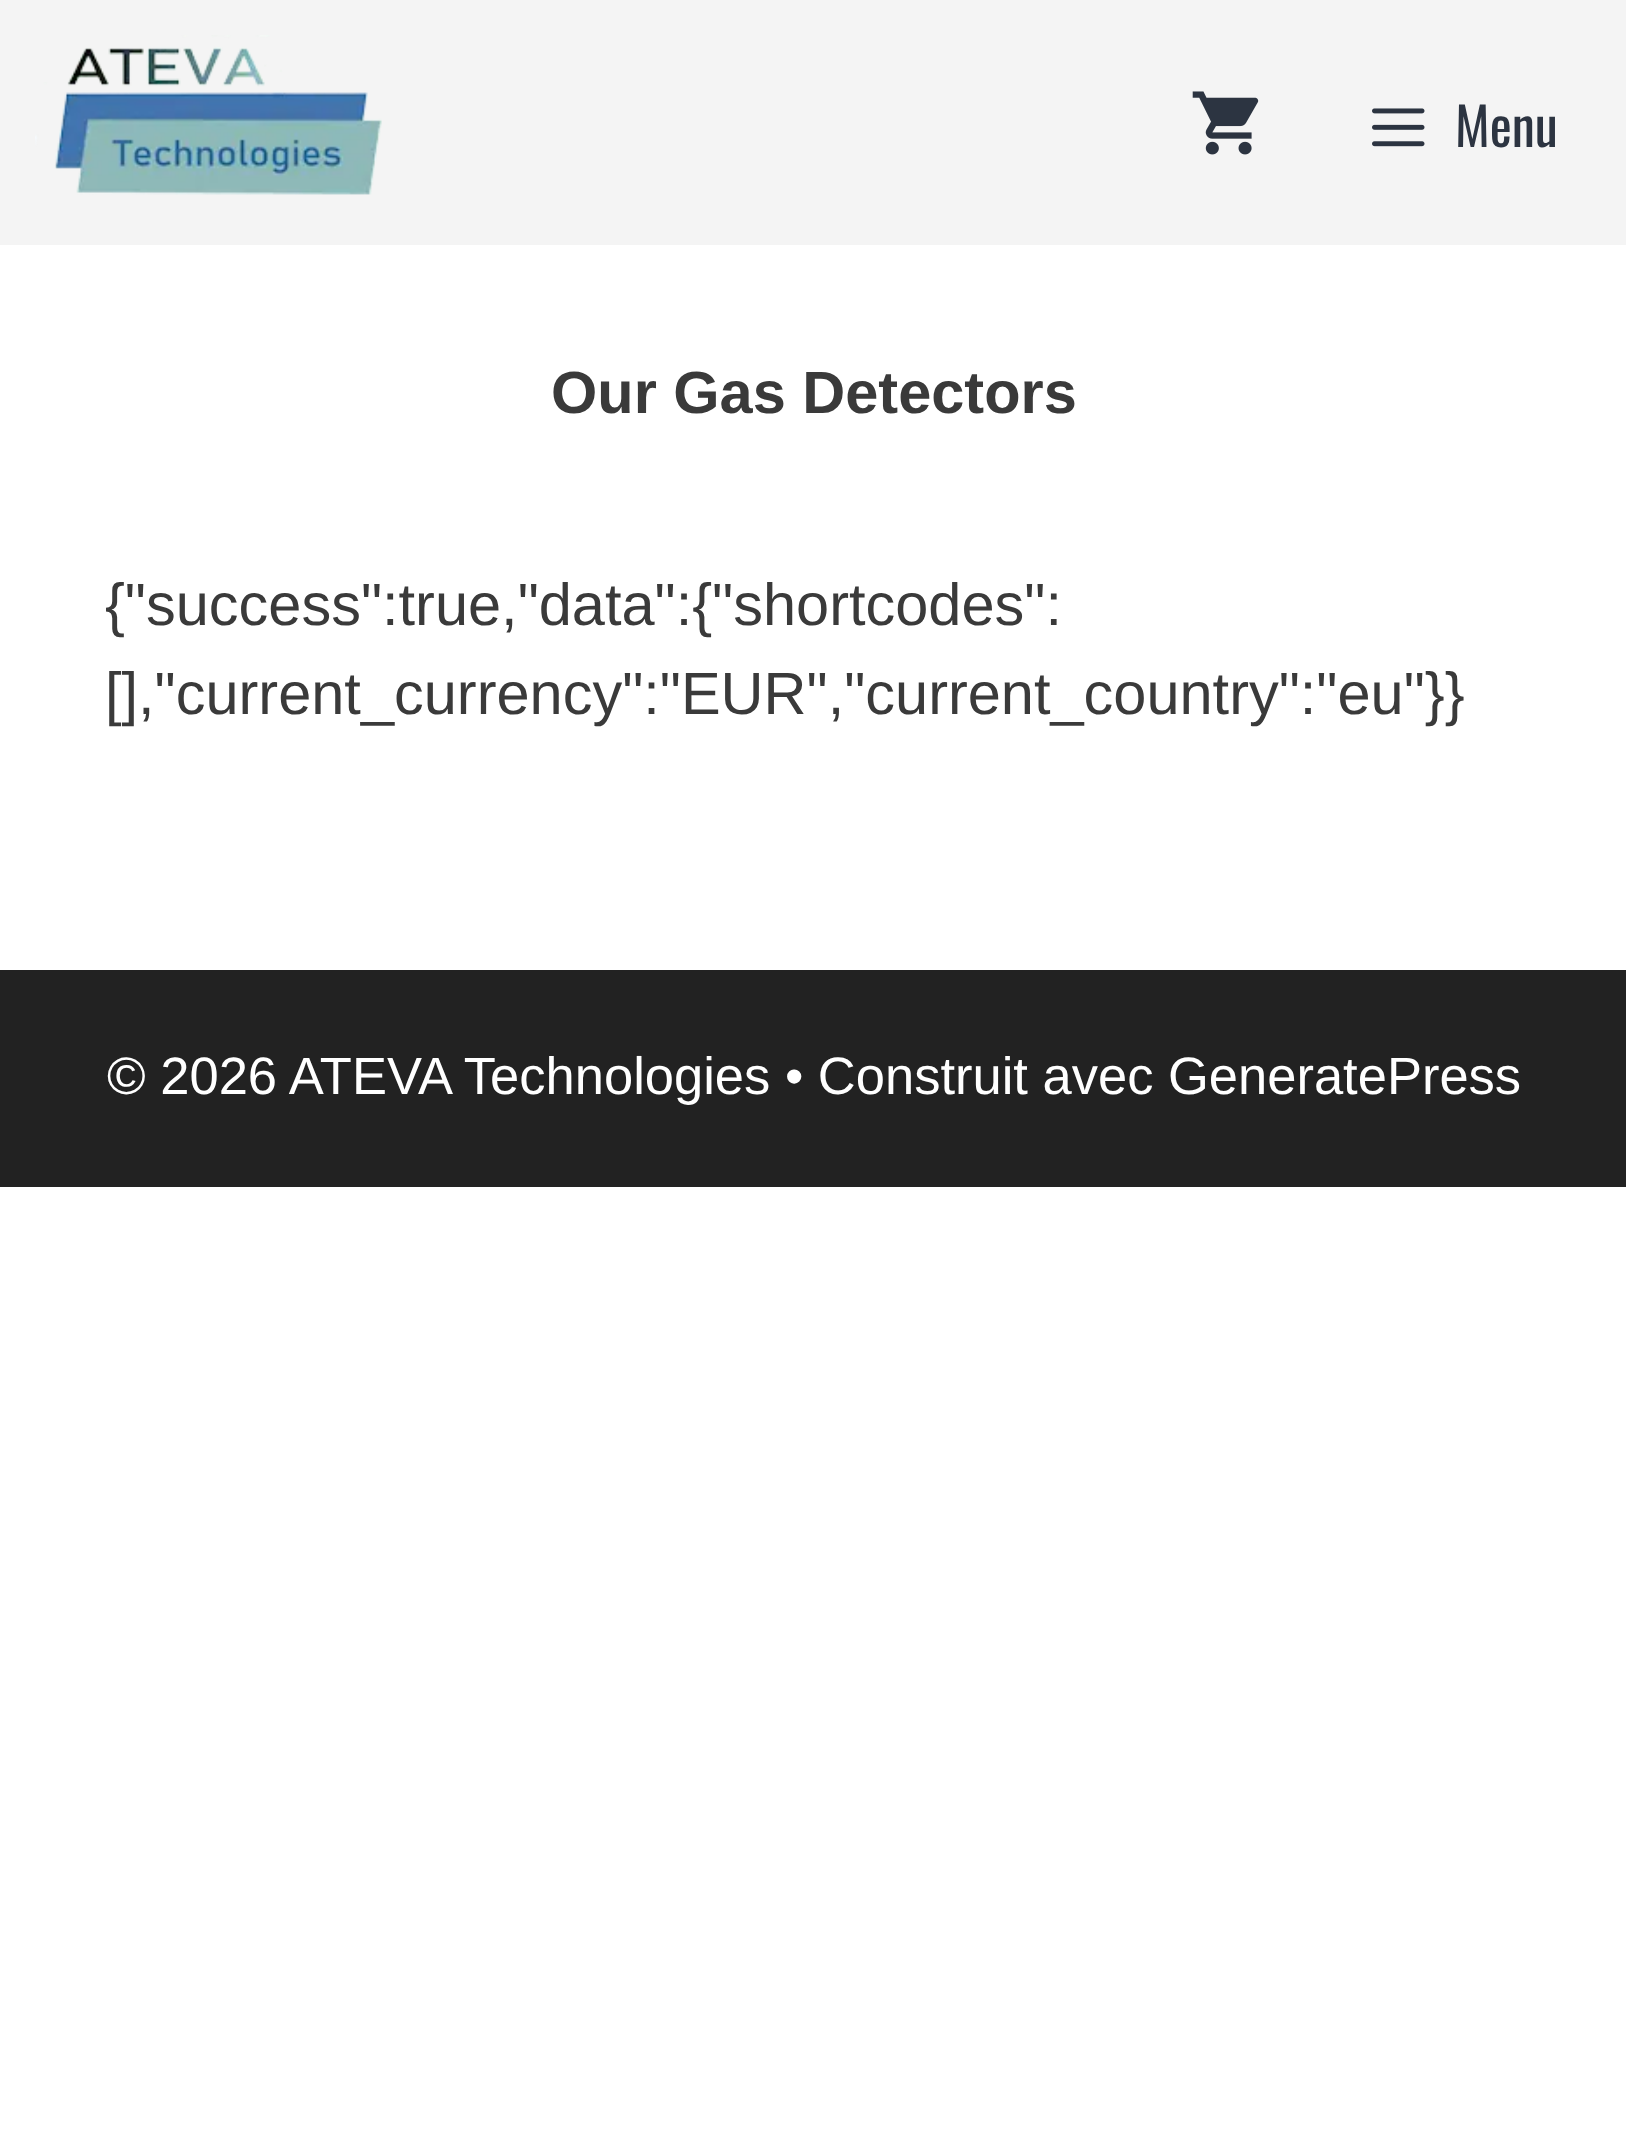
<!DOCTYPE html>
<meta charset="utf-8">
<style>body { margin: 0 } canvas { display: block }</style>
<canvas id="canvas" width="1626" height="2146"></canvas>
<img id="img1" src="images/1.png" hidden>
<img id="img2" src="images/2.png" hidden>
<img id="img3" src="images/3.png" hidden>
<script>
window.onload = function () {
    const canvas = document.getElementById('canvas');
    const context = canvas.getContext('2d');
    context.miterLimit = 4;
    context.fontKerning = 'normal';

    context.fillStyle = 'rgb(255, 255, 255)';
    context.fillRect(0, 0, 1626, 2146);
    context.fillStyle = 'rgb(244, 244, 244)';
    context.fillRect(0, 0, 1626, 245);
    context.drawImage(document.getElementById('img1'), 35, 35, 347, 160);
    context.drawImage(document.getElementById('img2'), 1192, 91, 67, 64);
    context.drawImage(document.getElementById('img3'), 1372, 108, 53, 39);
    context.fillStyle = 'rgb(34, 34, 34)';
    context.fillRect(0, 970, 1626, 217);
    context.font = '52.5px Oswald';
    context.fillStyle = 'rgb(44, 52, 65)';
    context.fillText('Menu', 1455, 147);
    context.font = 'bold 59.5px Liberation Sans';
    context.fillStyle = 'rgb(58, 58, 58)';
    context.fillText('Our Gas Detectors', 551, 413);
    context.font = '59.5px Liberation Sans';
    context.fillText('{"success":true,"data":{"shortcodes":', 105, 625);
    context.fillText('[],"current_currency":"EUR","current_country":"eu"}}', 105, 714);
    context.font = '52.5px Liberation Sans';
    context.fillStyle = 'rgb(255, 255, 255)';
    context.fillText('© 2026 ATEVA Technologies • Construit avec GeneratePress', 107, 1094);
};
</script>
